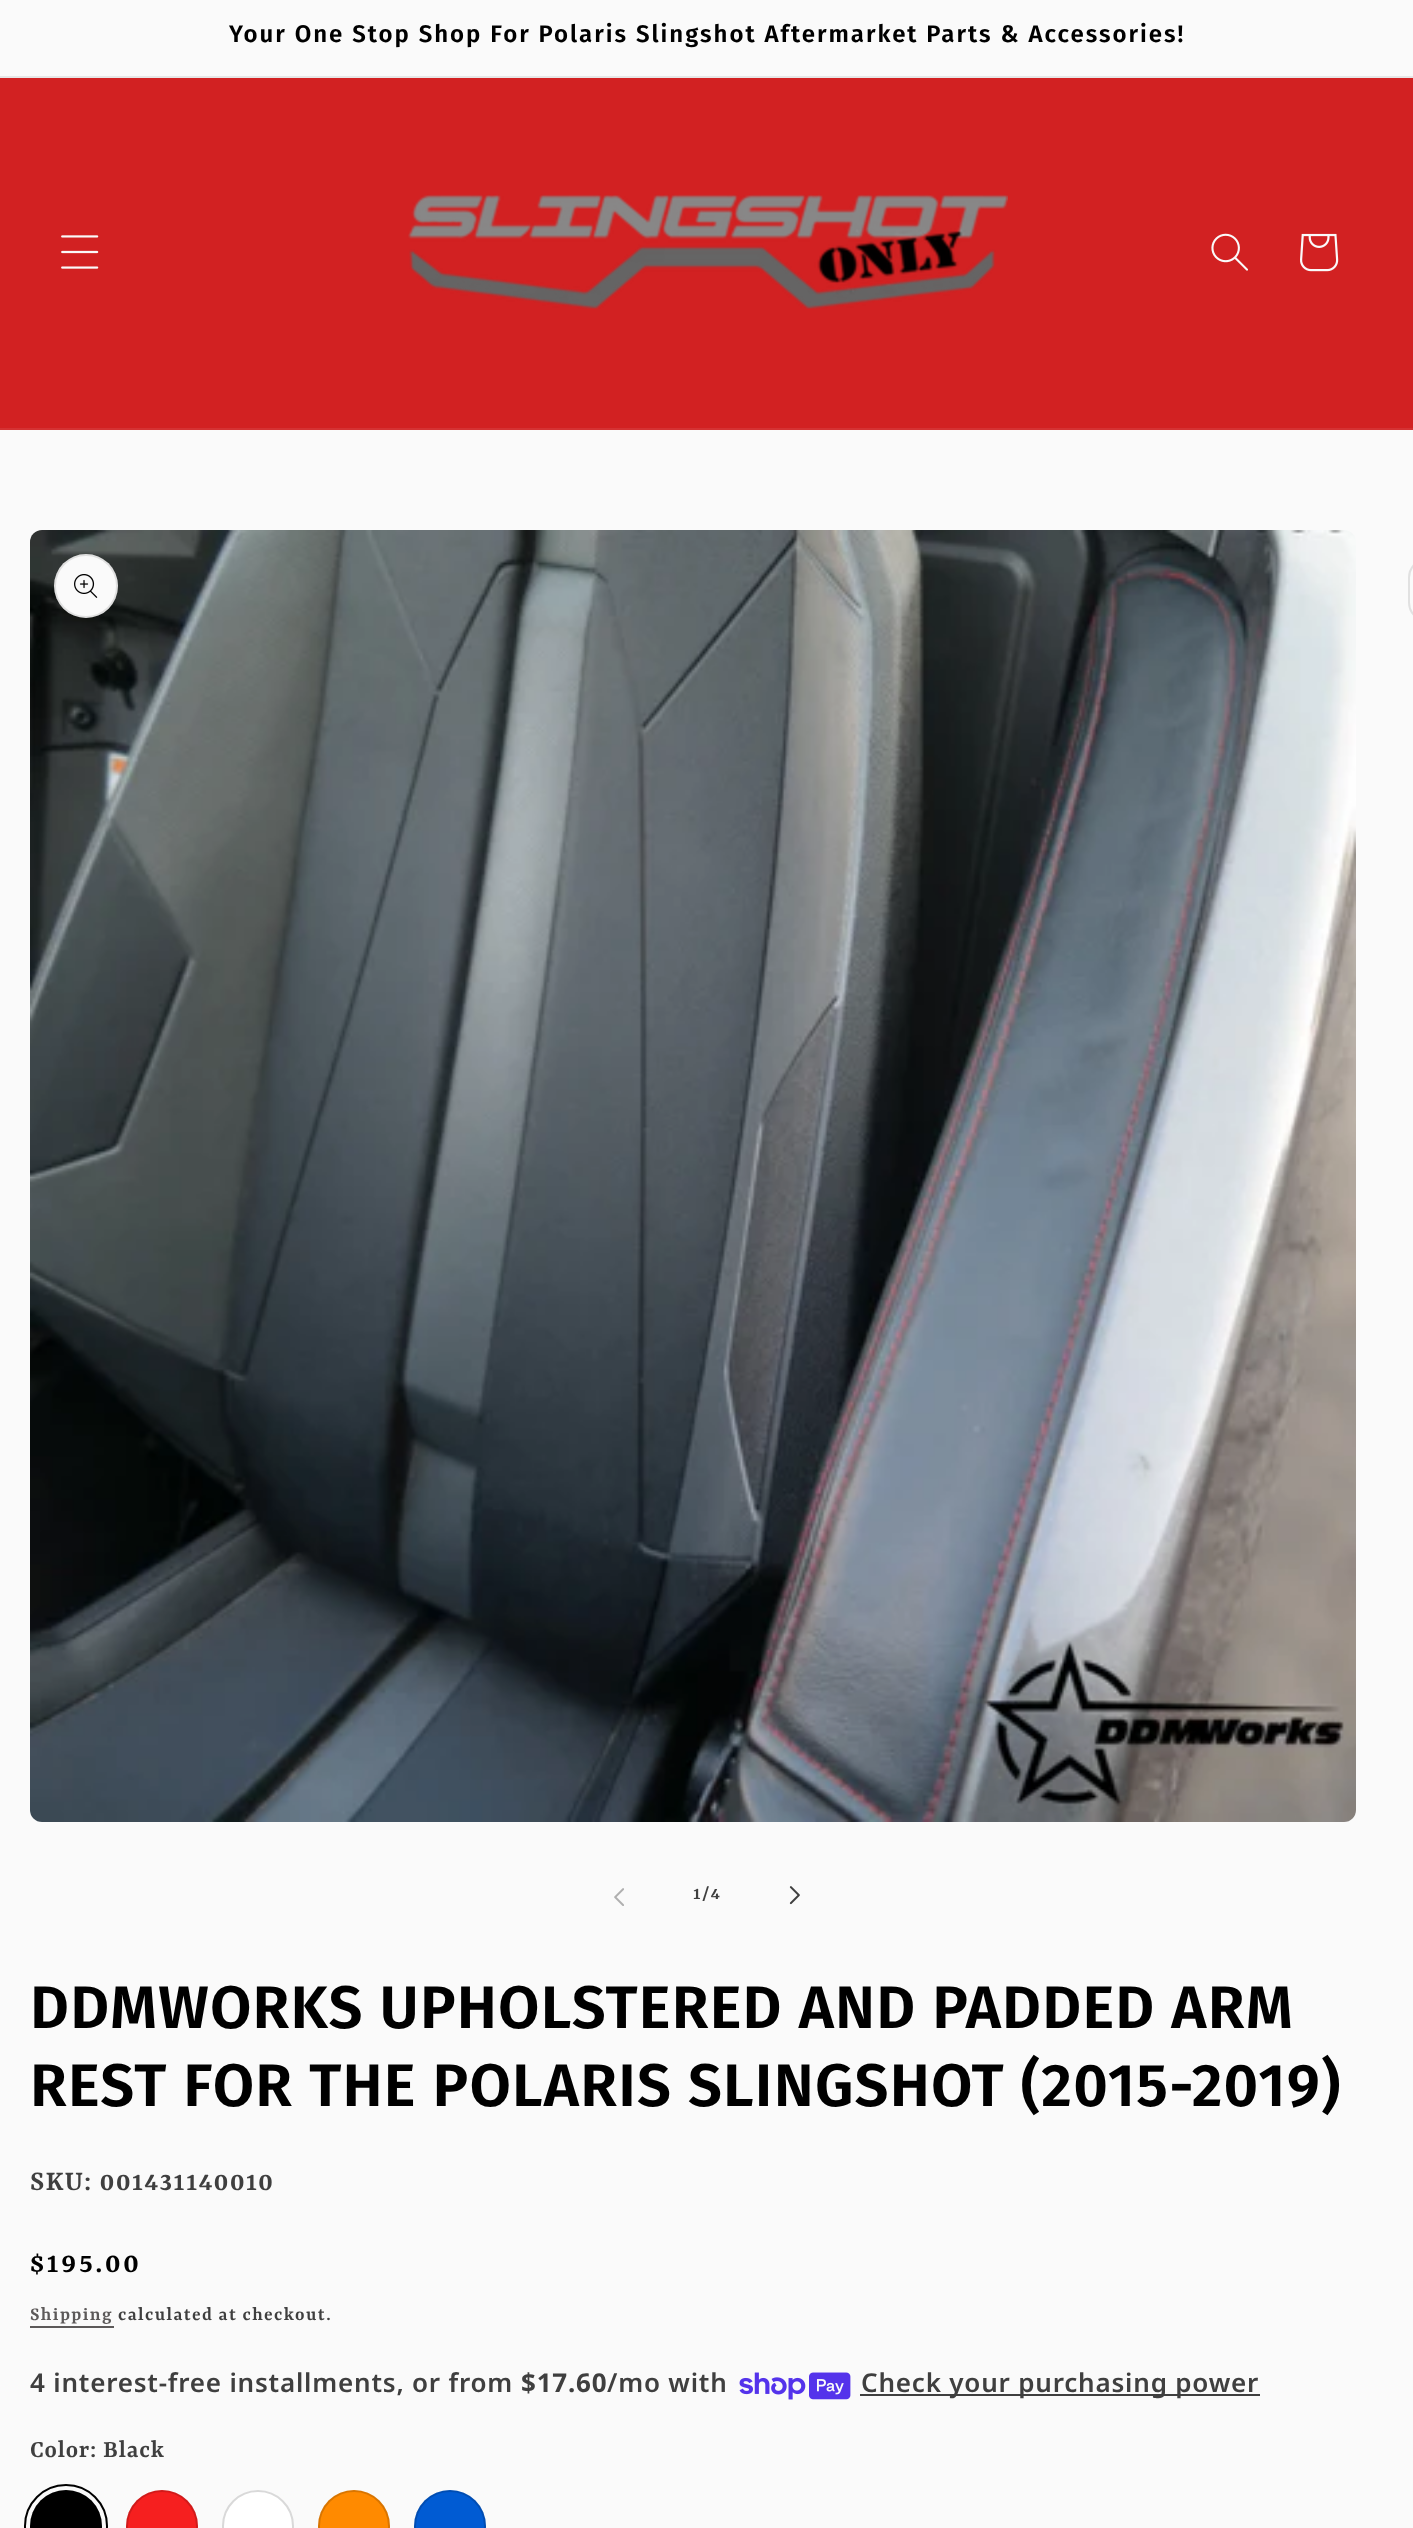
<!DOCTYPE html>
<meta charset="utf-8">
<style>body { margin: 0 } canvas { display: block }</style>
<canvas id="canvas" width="1413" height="2528"></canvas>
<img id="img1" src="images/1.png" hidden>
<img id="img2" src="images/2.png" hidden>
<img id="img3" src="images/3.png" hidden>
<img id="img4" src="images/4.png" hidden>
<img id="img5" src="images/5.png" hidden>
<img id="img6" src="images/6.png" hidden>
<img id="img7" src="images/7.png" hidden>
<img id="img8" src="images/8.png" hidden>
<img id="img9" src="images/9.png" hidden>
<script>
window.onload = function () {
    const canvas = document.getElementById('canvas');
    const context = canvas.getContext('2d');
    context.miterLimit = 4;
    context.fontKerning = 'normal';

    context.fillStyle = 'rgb(250, 250, 250)';
    context.fillRect(0, 0, 1413, 2528);
    context.fillStyle = 'rgb(230, 230, 230)';
    context.fillRect(0, 76, 1413, 2);
    context.fillStyle = 'rgb(210, 33, 34)';
    context.fillRect(0, 78, 1413, 350);
    context.fillStyle = 'rgb(213, 50, 51)';
    context.fillRect(0, 428, 1413, 2);
    context.drawImage(document.getElementById('img1'), 61, 235, 38, 34);
    context.drawImage(document.getElementById('img2'), 408, 194, 600, 115);
    context.drawImage(document.getElementById('img3'), 1211, 233, 37, 38);
    context.drawImage(document.getElementById('img4'), 1300, 233, 39, 39);
    context.drawImage(document.getElementById('img5'), 30, 530, 1326, 1292);
    context.fillStyle = 'rgb(250, 250, 250)';
    context.beginPath();
    context.arc(86, 586, 32, 0, 2 * Math.PI);
    context.fill();
    context.beginPath();
    context.arc(86, 586, 31, 0, 2 * Math.PI);
    context.strokeStyle = 'rgba(0, 0, 0, 0.1)';
    context.lineWidth = 2;
    context.stroke();
    context.drawImage(document.getElementById('img6'), 74, 574, 24, 24);
    context.beginPath();
    context.roundRect(1409, 559, 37, 62, 31);
    context.strokeStyle = 'rgb(225, 225, 225)';
    context.stroke();
    context.drawImage(document.getElementById('img7'), 614, 1888, 10, 18);
    context.drawImage(document.getElementById('img8'), 789, 1886, 11, 19);
    context.fillStyle = 'rgb(92, 89, 89)';
    context.fillRect(30, 2326, 84, 2);
    context.drawImage(document.getElementById('img9'), 739, 2372, 112, 28);
    context.fillStyle = 'rgb(63, 63, 63)';
    context.fillRect(860, 2394, 400, 2);
    context.fillStyle = 'rgb(0, 0, 0)';
    context.beginPath();
    context.arc(66, 2526, 36, 0, 2 * Math.PI);
    context.fill();
    context.beginPath();
    context.arc(66, 2526, 35, 0, 2 * Math.PI);
    context.strokeStyle = 'rgba(0, 0, 0, 0.15)';
    context.stroke();
    context.beginPath();
    context.arc(66, 2526, 41, 0, 2 * Math.PI);
    context.strokeStyle = 'rgb(0, 0, 0)';
    context.stroke();
    context.fillStyle = 'rgb(246, 31, 31)';
    context.beginPath();
    context.arc(162, 2526, 36, 0, 2 * Math.PI);
    context.fill();
    context.beginPath();
    context.arc(162, 2526, 35, 0, 2 * Math.PI);
    context.strokeStyle = 'rgba(0, 0, 0, 0.15)';
    context.stroke();
    context.fillStyle = 'rgb(255, 255, 255)';
    context.beginPath();
    context.arc(258, 2526, 35, 0, 2 * Math.PI);
    context.fill();
    context.strokeStyle = 'rgb(217, 217, 217)';
    context.stroke();
    context.fillStyle = 'rgb(255, 138, 0)';
    context.beginPath();
    context.arc(354, 2526, 36, 0, 2 * Math.PI);
    context.fill();
    context.beginPath();
    context.arc(354, 2526, 35, 0, 2 * Math.PI);
    context.strokeStyle = 'rgba(0, 0, 0, 0.15)';
    context.stroke();
    context.fillStyle = 'rgb(0, 91, 211)';
    context.beginPath();
    context.arc(450, 2526, 36, 0, 2 * Math.PI);
    context.fill();
    context.beginPath();
    context.arc(450, 2526, 35, 0, 2 * Math.PI);
    context.stroke();
    context.letterSpacing = '2px';
    context.font = '600 24px Fira Sans';
    context.fillStyle = 'rgb(0, 0, 0)';
    context.fillText('Your One Stop Shop For Polaris Slingshot Aftermarket Parts & Accessories!', 229, 42);
    context.letterSpacing = '1.4px';
    context.font = '600 20px Yrsa';
    context.fillStyle = 'rgb(63, 63, 63)';
    context.fillText('1/4', 693, 1899);
    context.letterSpacing = '1.2px';
    context.font = '600 60px Fira Sans';
    context.fillStyle = 'rgb(0, 0, 0)';
    context.fillText('DDMWORKS UPHOLSTERED AND PADDED ARM', 30, 2028);
    context.fillText('REST FOR THE POLARIS SLINGSHOT (2015-2019)', 30, 2106);
    context.font = '600 30px Yrsa';
    context.fillStyle = 'rgb(63, 63, 63)';
    context.fillText('SKU: 001431140010', 30, 2190);
    context.letterSpacing = '2.5px';
    context.font = '600 32px Yrsa';
    context.fillStyle = 'rgb(0, 0, 0)';
    context.fillText('$195.00', 30, 2272);
    context.letterSpacing = '1.4px';
    context.font = '600 20px Yrsa';
    context.fillStyle = 'rgb(92, 89, 89)';
    context.fillText('Shipping', 30, 2320);
    context.fillStyle = 'rgb(63, 63, 63)';
    context.fillText('calculated at checkout.', 118, 2320);
    context.letterSpacing = '0.8px';
    context.font = '600 26px Noto Sans';
    context.fillText('4 interest-free installments, or from', 30, 2392);
    context.font = 'bold 26px Noto Sans';
    context.fillText('$17.60', 521, 2392);
    context.font = '600 26px Noto Sans';
    context.fillText('/mo with', 607, 2392);
    context.fillText('Check your purchasing power', 861, 2392);
    context.font = '600 26px Yrsa';
    context.fillText('Color: Black', 30, 2457);
};
</script>
